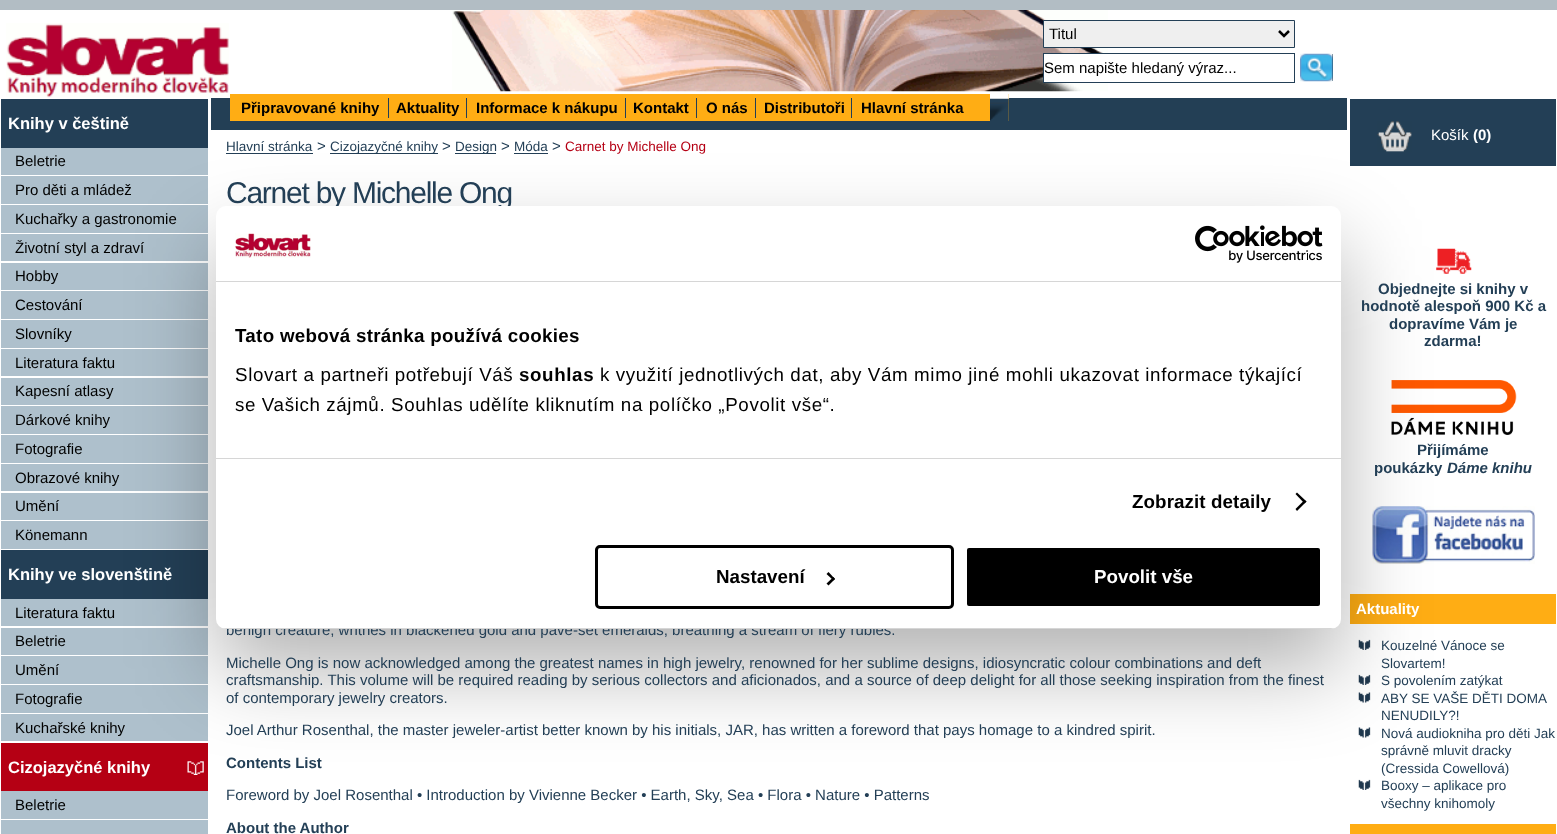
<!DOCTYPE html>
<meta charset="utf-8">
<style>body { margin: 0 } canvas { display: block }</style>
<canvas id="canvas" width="1557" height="834"></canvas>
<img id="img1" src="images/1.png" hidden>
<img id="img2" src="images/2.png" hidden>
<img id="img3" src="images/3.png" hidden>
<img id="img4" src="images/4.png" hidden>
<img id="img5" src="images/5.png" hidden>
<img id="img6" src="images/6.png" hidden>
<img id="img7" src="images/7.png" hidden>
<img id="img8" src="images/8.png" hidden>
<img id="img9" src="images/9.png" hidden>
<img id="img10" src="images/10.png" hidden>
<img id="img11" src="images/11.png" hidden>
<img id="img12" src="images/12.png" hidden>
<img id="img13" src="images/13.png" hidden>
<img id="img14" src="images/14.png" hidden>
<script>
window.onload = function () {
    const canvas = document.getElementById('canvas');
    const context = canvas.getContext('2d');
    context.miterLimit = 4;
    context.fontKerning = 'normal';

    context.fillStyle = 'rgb(255, 255, 255)';
    context.fillRect(0, 0, 1557, 834);
    context.drawImage(document.getElementById('img1'), 452, 10, 656, 82);
    context.fillStyle = 'rgb(178, 189, 196)';
    context.fillRect(0, 0, 1557, 10);
    context.drawImage(document.getElementById('img2'), 6, 23, 223, 75);
    context.fillStyle = 'rgb(239, 239, 239)';
    context.beginPath();
    context.rect(1043.5, 20.5, 251, 27);
    context.fill();
    context.strokeStyle = 'rgb(35, 63, 86)';
    context.stroke();
    context.beginPath();
    context.moveTo(1279, 31);
    context.lineTo(1284, 36);
    context.lineTo(1289, 31);
    context.strokeStyle = 'rgb(0, 0, 0)';
    context.lineWidth = 2.5;
    context.stroke();
    context.fillStyle = 'rgb(255, 255, 255)';
    context.fillRect(1044, 54, 64, 28);
    context.strokeStyle = 'rgb(35, 63, 86)';
    context.lineWidth = 1;
    context.strokeRect(1043.5, 53.5, 251, 29);
    context.fillStyle = 'rgb(35, 63, 86)';
    context.fillRect(1332, 54, 1, 27);
    context.drawImage(document.getElementById('img3'), 1300, 53, 33, 29);
    context.fillRect(1, 99, 207, 49);
    context.fillStyle = 'rgb(174, 192, 204)';
    context.fillRect(1, 148, 207, 27);
    context.fillRect(1, 176, 207, 28);
    context.fillRect(1, 205, 207, 28);
    context.fillRect(1, 234, 207, 27);
    context.fillRect(1, 263, 207, 27);
    context.fillRect(1, 291, 207, 28);
    context.fillRect(1, 320, 207, 28);
    context.fillRect(1, 349, 207, 27);
    context.fillRect(1, 378, 207, 27);
    context.fillRect(1, 406, 207, 28);
    context.fillRect(1, 435, 207, 28);
    context.fillRect(1, 464, 207, 27);
    context.fillRect(1, 493, 207, 27);
    context.fillRect(1, 521, 207, 28);
    context.fillStyle = 'rgb(35, 63, 86)';
    context.fillRect(1, 550, 207, 49);
    context.fillStyle = 'rgb(174, 192, 204)';
    context.fillRect(1, 599, 207, 27);
    context.fillRect(1, 628, 207, 27);
    context.fillRect(1, 656, 207, 28);
    context.fillRect(1, 685, 207, 28);
    context.fillRect(1, 714, 207, 27);
    context.fillStyle = 'rgb(181, 0, 20)';
    context.fillRect(1, 743, 207, 48);
    context.drawImage(document.getElementById('img4'), 187, 761, 17, 14);
    context.fillStyle = 'rgb(174, 192, 204)';
    context.fillRect(1, 791, 207, 28);
    context.fillRect(1, 820, 207, 14);
    context.fillStyle = 'rgb(35, 63, 85)';
    context.fillRect(211, 98, 1136, 32);
    context.fillStyle = 'rgb(255, 173, 20)';
    context.fillRect(230, 94, 779, 27);
    context.drawImage(document.getElementById('img5'), 990, 94, 19, 27);
    context.fillStyle = 'rgb(35, 63, 86)';
    context.fillRect(388, 98, 1, 20);
    context.fillRect(466, 98, 1, 20);
    context.fillRect(625, 98, 1, 20);
    context.fillRect(696, 98, 1, 20);
    context.fillRect(755, 98, 1, 20);
    context.fillRect(851, 98, 1, 20);
    context.fillRect(226, 153, 87, 1);
    context.fillRect(330, 153, 108, 1);
    context.fillRect(455, 153, 41, 1);
    context.fillRect(514, 153, 34, 1);
    context.fillRect(1350, 99, 206, 67);
    context.drawImage(document.getElementById('img6'), 1377, 121, 35, 31);
    context.drawImage(document.getElementById('img7'), 1436, 248, 36, 26);
    context.drawImage(document.getElementById('img8'), 1391, 380, 126, 55);
    context.drawImage(document.getElementById('img9'), 1372, 506, 163, 58);
    context.fillStyle = 'rgb(255, 173, 20)';
    context.fillRect(1350, 594, 206, 30);
    context.drawImage(document.getElementById('img10'), 1358, 639, 13, 11);
    context.drawImage(document.getElementById('img10'), 1358, 674, 13, 11);
    context.drawImage(document.getElementById('img11'), 1358, 692, 13, 11);
    context.drawImage(document.getElementById('img11'), 1358, 727, 13, 11);
    context.drawImage(document.getElementById('img12'), 1358, 779, 13, 11);
    context.fillRect(1350, 824, 206, 10);
    context.fillStyle = 'rgba(0, 0, 0, 0.3)';
    context.filter = 'blur(42.5px)';
    context.beginPath();
    context.roundRect(216, 246, 1125, 423, 10);
    context.fill();
    context.filter = 'none';
    context.font = '15px Liberation Sans';
    context.fillStyle = 'rgb(0, 0, 0)';
    context.fillText('Titul', 1049, 39);
    context.save();
    context.beginPath();
    context.rect(1044, 59, 250, 17);
    context.clip();
    context.fillText('Sem napište hledaný výraz...', 1044, 73);
    context.restore();
    context.font = 'bold 16.5px Liberation Sans';
    context.fillStyle = 'rgb(255, 255, 255)';
    context.fillText('Knihy v češtině', 8, 129);
    context.font = '15px Liberation Sans';
    context.fillStyle = 'rgb(0, 0, 0)';
    context.fillText('Beletrie', 15, 166);
    context.fillText('Pro děti a mládež', 15, 195);
    context.fillText('Kuchařky a gastronomie', 15, 224);
    context.fillText('Životní styl a zdraví', 15, 253);
    context.fillText('Hobby', 15, 281);
    context.fillText('Cestování', 15, 310);
    context.fillText('Slovníky', 15, 339);
    context.fillText('Literatura faktu', 15, 368);
    context.fillText('Kapesní atlasy', 15, 396);
    context.fillText('Dárkové knihy', 15, 425);
    context.fillText('Fotografie', 15, 454);
    context.fillText('Obrazové knihy', 15, 483);
    context.fillText('Umění', 15, 511);
    context.fillText('Könemann', 15, 540);
    context.font = 'bold 16.5px Liberation Sans';
    context.fillStyle = 'rgb(255, 255, 255)';
    context.fillText('Knihy ve slovenštině', 8, 580);
    context.font = '15px Liberation Sans';
    context.fillStyle = 'rgb(0, 0, 0)';
    context.fillText('Literatura faktu', 15, 618);
    context.fillText('Beletrie', 15, 646);
    context.fillText('Umění', 15, 675);
    context.fillText('Fotografie', 15, 704);
    context.fillText('Kuchařské knihy', 15, 733);
    context.font = 'bold 16.5px Liberation Sans';
    context.fillStyle = 'rgb(255, 255, 255)';
    context.fillText('Cizojazyčné knihy', 8, 773);
    context.font = '15px Liberation Sans';
    context.fillStyle = 'rgb(0, 0, 0)';
    context.fillText('Beletrie', 15, 810);
    context.font = 'bold 15px Liberation Sans';
    context.fillText('Připravované knihy', 241, 113);
    context.fillText('Aktuality', 396, 113);
    context.fillText('Informace k nákupu', 476, 113);
    context.fillText('Kontakt', 633, 113);
    context.fillText('O nás', 706, 113);
    context.fillText('Distributoři', 764, 113);
    context.fillText('Hlavní stránka', 861, 113);
    context.font = '13.5px Liberation Sans';
    context.fillStyle = 'rgb(35, 63, 86)';
    context.fillText('Hlavní stránka', 226, 151);
    context.font = '15px Liberation Sans';
    context.fillText('>', 317, 151);
    context.font = '13.5px Liberation Sans';
    context.fillText('Cizojazyčné knihy', 330, 151);
    context.font = '15px Liberation Sans';
    context.fillText('>', 442, 151);
    context.font = '13.5px Liberation Sans';
    context.fillText('Design', 455, 151);
    context.font = '15px Liberation Sans';
    context.fillText('>', 501, 151);
    context.font = '13.5px Liberation Sans';
    context.fillText('Móda', 514, 151);
    context.font = '15px Liberation Sans';
    context.fillText('>', 552, 151);
    context.font = '13.5px Liberation Sans';
    context.fillStyle = 'rgb(181, 0, 20)';
    context.fillText('Carnet by Michelle Ong', 565, 151);
    context.letterSpacing = '-1.25px';
    context.font = '30px Liberation Sans';
    context.fillStyle = 'rgb(35, 63, 86)';
    context.fillText('Carnet by Michelle Ong', 226, 203);
    context.letterSpacing = '0px';
    context.font = '15px Liberation Sans';
    context.fillText('benign creature, writhes in blackened gold and pavé-set emeralds, breathing a stream of fiery rubies.', 226, 635);
    context.fillText('Michelle Ong is now acknowledged among the greatest names in high jewelry, renowned for her sublime designs, idiosyncratic colour combinations and deft', 226, 668);
    context.fillText('craftsmanship. This volume will be required reading by serious collectors and aficionados, and a source of deep delight for all those seeking inspiration from the finest', 226, 685);
    context.fillText('of contemporary jewelry creators.', 226, 703);
    context.fillText('Joel Arthur Rosenthal, the master jeweler-artist better known by his initials, JAR, has written a foreword that pays homage to a kindred spirit.', 226, 735);
    context.font = 'bold 15px Liberation Sans';
    context.fillText('Contents List', 226, 768);
    context.font = '15px Liberation Sans';
    context.fillText('Foreword by Joel Rosenthal • Introduction by Vivienne Becker • Earth, Sky, Sea • Flora • Nature • Patterns', 226, 800);
    context.font = 'bold 15px Liberation Sans';
    context.fillText('About the Author', 226, 833);
    context.font = '15px Liberation Sans';
    context.fillStyle = 'rgb(255, 255, 255)';
    context.fillText('Košík', 1431, 140);
    context.font = 'bold 15px Liberation Sans';
    context.fillText('(0)', 1473, 140);
    context.fillStyle = 'rgb(35, 63, 86)';
    context.fillText('Objednejte si knihy v', 1378, 294);
    context.fillText('hodnotě alespoň 900 Kč a', 1361, 311);
    context.fillText('dopravíme Vám je', 1389, 329);
    context.fillText('zdarma!', 1424, 346);
    context.fillText('Přijímáme', 1417, 455);
    context.fillText('poukázky', 1374, 473);
    context.font = 'italic bold 15px Liberation Sans';
    context.fillText('Dáme knihu', 1447, 473);
    context.font = 'bold 15px Liberation Sans';
    context.fillStyle = 'rgb(255, 255, 255)';
    context.fillText('Aktuality', 1356, 614);
    context.font = '13.5px Liberation Sans';
    context.fillStyle = 'rgb(35, 63, 86)';
    context.fillText('Kouzelné Vánoce se', 1381, 650);
    context.fillText('Slovartem!', 1381, 668);
    context.fillText('S povolením zatýkat', 1381, 685);
    context.fillText('ABY SE VAŠE DĚTI DOMA', 1381, 703);
    context.fillText('NENUDILY?!', 1381, 720);
    context.fillText('Nová audiokniha pro děti Jak', 1381, 738);
    context.fillText('správně mluvit dracky', 1381, 755);
    context.fillText('(Cressida Cowellová)', 1381, 773);
    context.fillText('Booxy – aplikace pro', 1381, 790);
    context.fillText('všechny knihomoly', 1381, 808);
    context.fillStyle = 'rgb(255, 255, 255)';
    context.beginPath();
    context.roundRect(216, 206, 1125, 423, 10);
    context.fill();
    context.fillStyle = 'rgb(214, 214, 214)';
    context.fillRect(216, 281, 1125, 1);
    context.drawImage(document.getElementById('img13'), 235, 233, 76, 25);
    context.drawImage(document.getElementById('img14'), 1195, 225, 128, 38);
    context.fillRect(216, 458, 1125, 1);
    context.letterSpacing = '0.3px';
    context.font = 'bold 18.75px Liberation Sans';
    context.fillStyle = 'rgb(0, 0, 0)';
    context.fillText('Tato webová stránka používá cookies', 235, 342);
    context.letterSpacing = '0.62px';
    context.font = '18.75px Liberation Sans';
    context.fillText('Slovart a partneři potřebují Váš', 235, 381);
    context.font = 'bold 18.75px Liberation Sans';
    context.fillText('souhlas', 519, 381);
    context.font = '18.75px Liberation Sans';
    context.fillText('k využití jednotlivých dat, aby Vám mimo jiné mohli ukazovat informace týkající', 600, 381);
    context.fillText('se Vašich zájmů. Souhlas udělíte kliknutím na políčko „Povolit vše“.', 235, 411);
    context.letterSpacing = '0.1px';
    context.font = 'bold 18.75px Liberation Sans';
    context.fillText('Zobrazit detaily', 1132, 508);
    context.beginPath();
    context.moveTo(1297, 492.5);
    context.lineTo(1306.5, 501.5);
    context.lineTo(1304.5, 503.5);
    context.lineTo(1295.5, 494);
    context.closePath();
    context.fill();
    context.beginPath();
    context.moveTo(1304.5, 500);
    context.lineTo(1306.5, 501.5);
    context.lineTo(1297, 511);
    context.lineTo(1295.5, 509);
    context.closePath();
    context.fill();
    context.save();
    context.beginPath();
    context.roundRect(216, 206, 1125, 423, 10);
    context.clip();
    context.fillStyle = 'rgb(214, 214, 214)';
    context.fillRect(216, 628, 1125, 1);
    context.restore();
    context.beginPath();
    context.roundRect(596.5, 546.5, 356, 61, 3.5);
    context.strokeStyle = 'rgb(0, 0, 0)';
    context.lineWidth = 3;
    context.stroke();
    context.letterSpacing = '0px';
    context.fillText('Nastavení', 716, 583);
    context.beginPath();
    context.moveTo(828.5, 572);
    context.lineTo(835, 579);
    context.lineTo(833.5, 580.5);
    context.lineTo(826.5, 574);
    context.closePath();
    context.fill();
    context.beginPath();
    context.moveTo(833.5, 577);
    context.lineTo(835, 579);
    context.lineTo(828.5, 585.5);
    context.lineTo(826.5, 583.5);
    context.closePath();
    context.fill();
    context.beginPath();
    context.roundRect(965.5, 546.5, 356, 61, 3.5);
    context.fill();
    context.strokeStyle = 'rgb(255, 255, 255)';
    context.stroke();
    context.fillStyle = 'rgb(255, 255, 255)';
    context.fillText('Povolit vše', 1094, 583);
};
</script>
